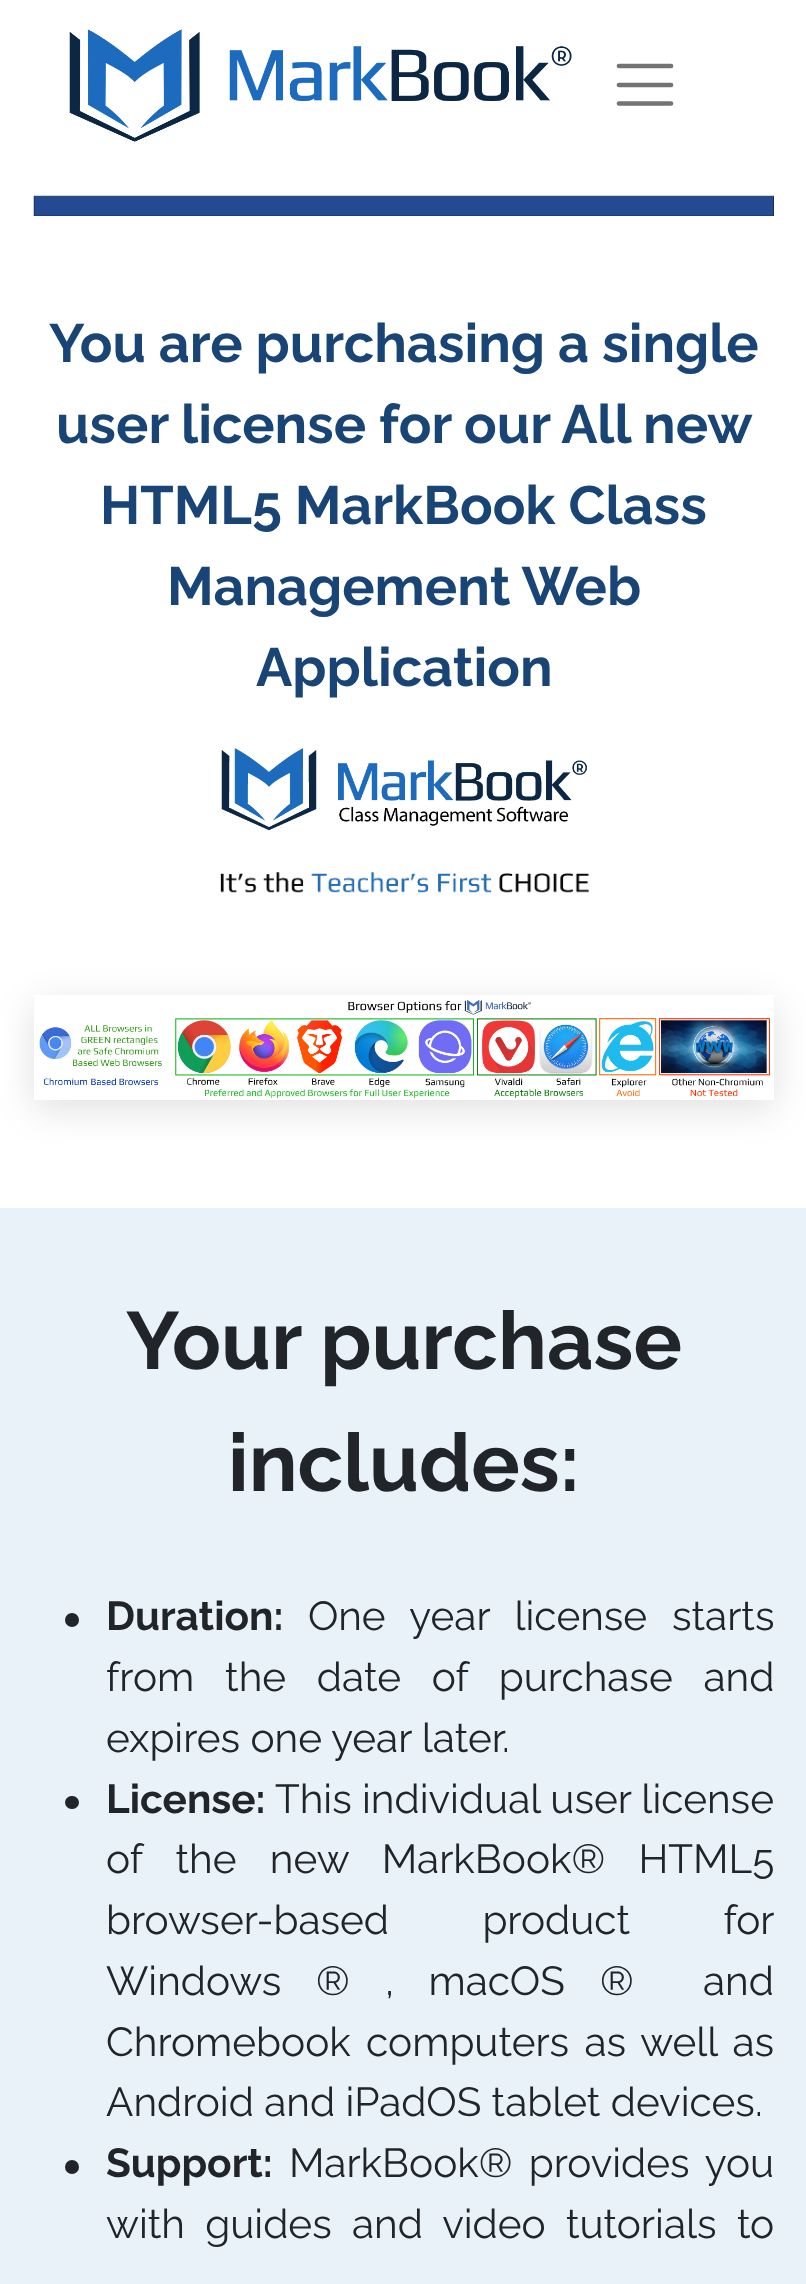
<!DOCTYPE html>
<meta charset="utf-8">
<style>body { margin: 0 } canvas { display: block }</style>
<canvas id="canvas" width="806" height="2284"></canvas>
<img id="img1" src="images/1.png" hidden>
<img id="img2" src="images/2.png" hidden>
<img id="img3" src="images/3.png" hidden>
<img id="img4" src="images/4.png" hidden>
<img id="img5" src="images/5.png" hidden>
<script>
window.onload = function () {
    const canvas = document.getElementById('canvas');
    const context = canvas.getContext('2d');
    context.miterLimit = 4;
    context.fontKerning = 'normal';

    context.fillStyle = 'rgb(255, 255, 255)';
    context.fillRect(0, 0, 806, 2284);
    context.drawImage(document.getElementById('img1'), 69, 29, 503, 113);
    context.beginPath();
    context.moveTo(619, 66);
    context.lineTo(671, 66);
    context.moveTo(619, 85);
    context.lineTo(671, 85);
    context.moveTo(619, 103.5);
    context.lineTo(671, 103.5);
    context.strokeStyle = 'rgb(115, 115, 115)';
    context.lineWidth = 4.7;
    context.lineCap = 'round';
    context.stroke();
    context.drawImage(document.getElementById('img2'), 33, 195, 741, 21);
    context.drawImage(document.getElementById('img3'), 221, 748, 367, 83);
    context.drawImage(document.getElementById('img4'), 220, 872, 369, 21);
    context.save();
    context.beginPath();
    context.moveTo(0, 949);
    context.lineTo(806, 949);
    context.lineTo(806, 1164);
    context.lineTo(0, 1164);
    context.closePath();
    context.moveTo(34, 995);
    context.lineTo(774, 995);
    context.lineTo(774, 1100);
    context.lineTo(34, 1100);
    context.closePath();
    context.clip('evenodd');
    context.fillStyle = 'rgba(0, 0, 0, 0.12)';
    context.filter = 'blur(18px)';
    context.beginPath();
    context.rect(34, 1004, 740, 105);
    context.fill();
    context.filter = 'none';
    context.restore();
    context.drawImage(document.getElementById('img5'), 39, 1000, 731, 98);
    context.fillStyle = 'rgb(233, 242, 248)';
    context.fillRect(0, 1208, 806, 1076);
    context.fillStyle = 'rgb(33, 37, 41)';
    context.beginPath();
    context.arc(72, 1620, 7, 0, 2 * Math.PI);
    context.fill();
    context.beginPath();
    context.roundRect(65, 1796, 14, 13, 6.5);
    context.fill();
    context.beginPath();
    context.arc(72, 2167, 7, 0, 2 * Math.PI);
    context.fill();
    context.font = 'bold 54px Raleway';
    context.fillStyle = 'rgb(24, 68, 118)';
    context.fillText('You are purchasing a single', 49, 362);
    context.fillText('user license for our All new', 56, 443);
    context.fillText('HTML5 MarkBook Class', 100, 524);
    context.fillText('Management Web', 167, 605);
    context.fillText('Application', 256, 686);
    context.font = 'bold 81px Raleway';
    context.fillStyle = 'rgb(33, 37, 41)';
    context.fillText('Your purchase', 126, 1369);
    context.fillText('includes:', 228, 1491);
    context.font = 'bold 40.5px Raleway';
    context.fillText('Duration:', 106, 1630);
    context.wordSpacing = '14.5px';
    context.font = '40.5px Raleway';
    context.fillText('One year license starts', 308, 1630);
    context.wordSpacing = '20.5px';
    context.fillText('from the date of purchase and', 106, 1691);
    context.wordSpacing = '0px';
    context.fillText('expires one year later.', 106, 1752);
    context.font = 'bold 40.5px Raleway';
    context.fillText('License:', 106, 1813);
    context.font = '40.5px Raleway';
    context.fillText('This individual user license', 275, 1813);
    context.wordSpacing = '23px';
    context.fillText('of the new MarkBook® HTML5', 106, 1873);
    context.wordSpacing = '83px';
    context.fillText('browser-based product for', 106, 1934);
    context.wordSpacing = '0px';
    context.fillText('Windows', 106, 1995);
    context.fillText('®', 316, 1995);
    context.wordSpacing = '24px';
    context.fillText(', macOS', 385, 1995);
    context.wordSpacing = '0px';
    context.fillText('®', 600, 1995);
    context.fillText('and', 703, 1995);
    context.wordSpacing = '5px';
    context.fillText('Chromebook computers as well as', 106, 2056);
    context.wordSpacing = '0px';
    context.fillText('Android and iPadOS tablet devices.', 106, 2116);
    context.font = 'bold 40.5px Raleway';
    context.fillText('Support:', 106, 2177);
    context.wordSpacing = '6px';
    context.font = '40.5px Raleway';
    context.fillText('MarkBook® provides you', 289, 2177);
    context.wordSpacing = '10px';
    context.fillText('with guides and video tutorials to', 106, 2238);
};
</script>
